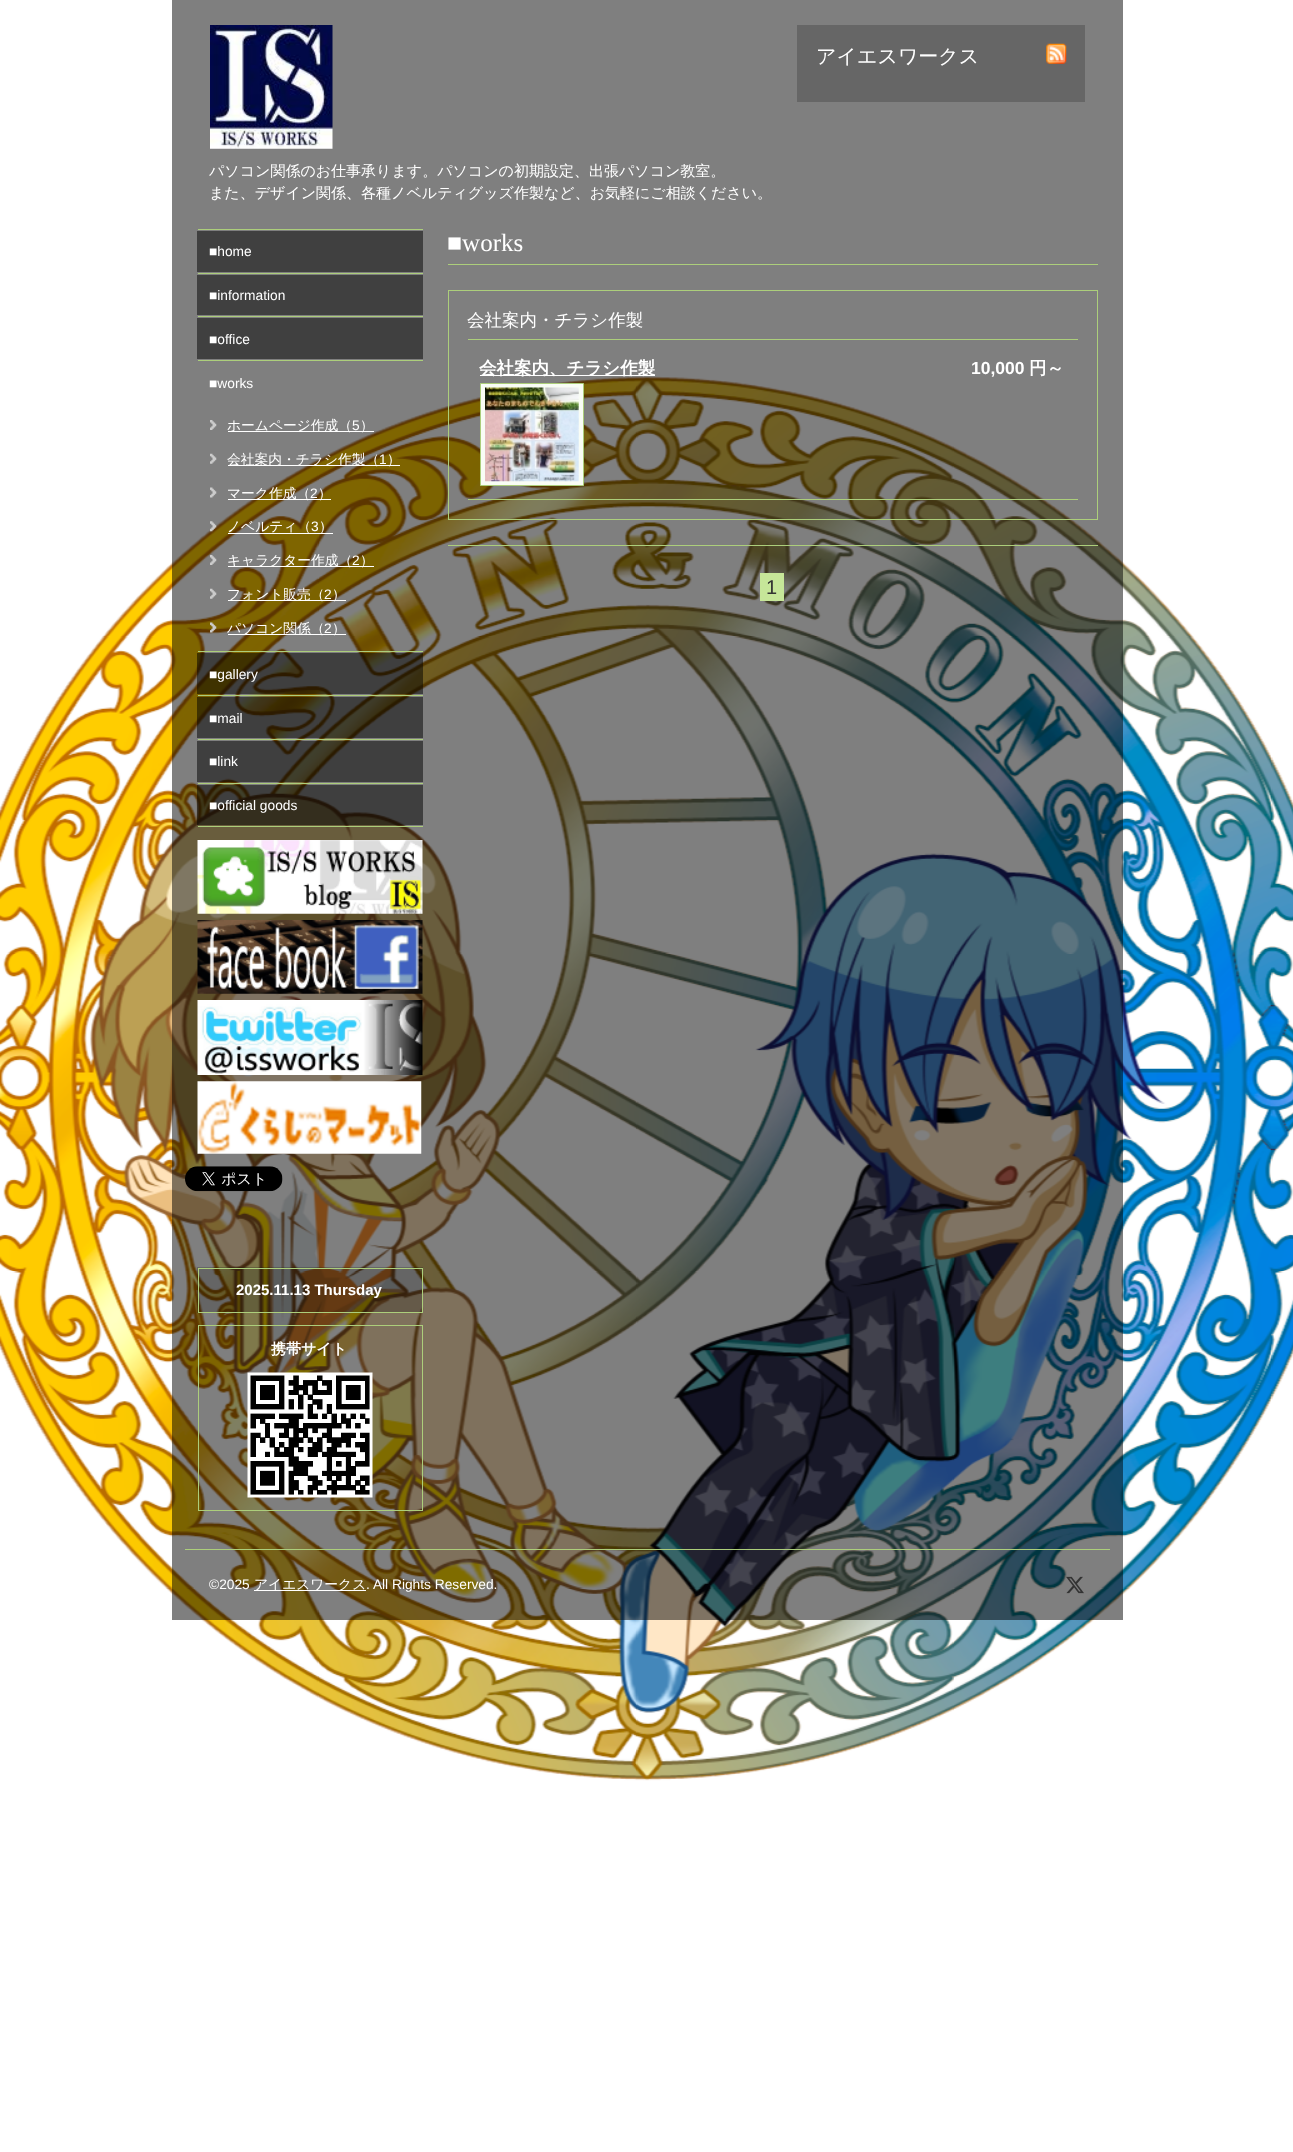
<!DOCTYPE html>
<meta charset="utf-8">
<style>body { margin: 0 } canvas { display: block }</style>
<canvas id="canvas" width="1293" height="2152"></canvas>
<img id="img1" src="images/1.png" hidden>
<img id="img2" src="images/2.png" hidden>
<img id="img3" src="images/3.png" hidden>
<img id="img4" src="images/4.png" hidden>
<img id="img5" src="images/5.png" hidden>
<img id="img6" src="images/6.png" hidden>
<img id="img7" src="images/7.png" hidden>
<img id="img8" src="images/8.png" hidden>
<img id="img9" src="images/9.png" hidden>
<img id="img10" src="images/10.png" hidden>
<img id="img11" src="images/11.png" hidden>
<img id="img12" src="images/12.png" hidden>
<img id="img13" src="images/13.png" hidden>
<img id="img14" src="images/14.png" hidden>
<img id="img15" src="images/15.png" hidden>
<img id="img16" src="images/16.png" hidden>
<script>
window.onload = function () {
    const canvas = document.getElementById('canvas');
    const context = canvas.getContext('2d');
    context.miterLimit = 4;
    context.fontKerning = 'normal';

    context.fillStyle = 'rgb(255, 255, 255)';
    context.fillRect(0, 0, 1293, 2152);
    context.drawImage(document.getElementById('img1'), 0, 376, 1293, 1405);
    context.fillStyle = 'rgba(0, 0, 0, 0.5)';
    context.fillRect(172, 0, 951, 1620);
    context.fillStyle = 'rgb(102, 102, 102)';
    context.fillRect(797, 25, 288, 77);
    context.drawImage(document.getElementById('img2'), 1046, 43, 21, 21);
    context.drawImage(document.getElementById('img3'), 210, 25, 123, 124);
    context.fillStyle = 'rgb(172, 206, 123)';
    context.fillRect(198, 229, 225, 1);
    context.fillRect(198, 273, 225, 1);
    context.fillStyle = 'rgb(64, 64, 64)';
    context.fillRect(197, 231, 226, 41);
    context.fillStyle = 'rgb(172, 206, 123)';
    context.fillRect(198, 316, 225, 1);
    context.fillStyle = 'rgb(64, 64, 64)';
    context.fillRect(197, 275, 226, 40);
    context.fillStyle = 'rgb(172, 206, 123)';
    context.fillRect(198, 360, 225, 1);
    context.fillStyle = 'rgb(64, 64, 64)';
    context.fillRect(197, 318, 226, 41);
    context.fillStyle = 'rgb(172, 206, 123)';
    context.fillRect(198, 651, 225, 1);
    context.drawImage(document.getElementById('img4'), 210, 420, 7, 10);
    context.fillStyle = 'rgb(255, 255, 255)';
    context.fillRect(228, 431, 146, 1);
    context.drawImage(document.getElementById('img5'), 210, 453, 7, 11);
    context.fillRect(228, 465, 172, 1);
    context.drawImage(document.getElementById('img6'), 210, 487, 7, 11);
    context.fillRect(228, 499, 103, 1);
    context.drawImage(document.getElementById('img7'), 210, 521, 7, 11);
    context.fillRect(228, 533, 105, 1);
    context.drawImage(document.getElementById('img4'), 210, 555, 7, 10);
    context.fillRect(228, 566, 146, 1);
    context.drawImage(document.getElementById('img5'), 210, 588, 7, 11);
    context.fillRect(228, 600, 118, 1);
    context.drawImage(document.getElementById('img8'), 210, 622, 7, 11);
    context.fillRect(228, 634, 118, 1);
    context.fillStyle = 'rgb(172, 206, 123)';
    context.fillRect(198, 695, 225, 1);
    context.fillStyle = 'rgba(0, 0, 0, 0.5)';
    context.fillRect(197, 653, 226, 41);
    context.fillStyle = 'rgb(172, 206, 123)';
    context.fillRect(198, 739, 225, 1);
    context.fillStyle = 'rgba(0, 0, 0, 0.5)';
    context.fillRect(197, 697, 226, 41);
    context.fillStyle = 'rgb(172, 206, 123)';
    context.fillRect(198, 783, 225, 1);
    context.fillStyle = 'rgba(0, 0, 0, 0.5)';
    context.fillRect(197, 741, 226, 41);
    context.fillStyle = 'rgb(172, 206, 123)';
    context.fillRect(198, 826, 225, 1);
    context.fillStyle = 'rgba(0, 0, 0, 0.5)';
    context.fillRect(197, 785, 226, 40);
    context.drawImage(document.getElementById('img9'), 197, 840, 226, 74);
    context.drawImage(document.getElementById('img10'), 197, 920, 226, 74);
    context.drawImage(document.getElementById('img11'), 197, 1000, 226, 75);
    context.drawImage(document.getElementById('img12'), 197, 1081, 225, 73);
    context.drawImage(document.getElementById('img13'), 185, 1166, 98, 26);
    context.fillStyle = 'rgb(172, 206, 123)';
    context.fillRect(448, 264, 650, 1);
    context.fillRect(448, 545, 650, 1);
    context.strokeStyle = 'rgb(172, 206, 123)';
    context.strokeRect(448.5, 290.5, 649, 229);
    context.fillRect(468, 339, 610, 1);
    context.fillRect(468, 499, 610, 1);
    context.fillStyle = 'rgb(255, 255, 255)';
    context.fillRect(480, 375, 175, 1);
    context.fillStyle = 'rgb(249, 253, 245)';
    context.beginPath();
    context.rect(480.5, 383.5, 103, 102);
    context.fill();
    context.stroke();
    context.drawImage(document.getElementById('img14'), 485, 387, 94, 95);
    context.fillStyle = 'rgb(198, 230, 153)';
    context.fillRect(760, 573, 24, 28);
    context.fillStyle = 'rgba(0, 0, 0, 0.2)';
    context.fillRect(197, 1267, 226, 46);
    context.strokeRect(198.5, 1268.5, 224, 44);
    context.strokeRect(198.5, 1325.5, 224, 185);
    context.drawImage(document.getElementById('img15'), 247, 1372, 126, 126);
    context.fillStyle = 'rgb(172, 206, 123)';
    context.fillRect(185, 1549, 925, 1);
    context.fillStyle = 'rgb(255, 255, 255)';
    context.fillRect(254, 1590, 112, 1);
    context.drawImage(document.getElementById('img16'), 1066, 1576, 18, 18);
    context.font = '500 20px WenQuanYi Zen Hei';
    context.fillText('アイエスワークス', 816, 63);
    context.font = '500 15px WenQuanYi Zen Hei';
    context.fillText('パソコン関係のお仕事承ります。パソコンの初期設定、出張パソコン教室。', 209, 176);
    context.fillText('また、デザイン関係、各種ノベルティグッズ作製など、お気軽にご相談ください。', 209, 198);
    context.font = '13.75px Liberation Sans';
    context.fillText('■home', 209, 256);
    context.fillText('■information', 209, 300);
    context.fillText('■office', 209, 344);
    context.fillText('■works', 209, 388);
    context.font = '500 13.75px WenQuanYi Zen Hei';
    context.fillText('ホームページ作成（', 227, 430);
    context.font = '13.75px Liberation Sans';
    context.fillText('5', 352, 430);
    context.font = '500 13.75px WenQuanYi Zen Hei';
    context.fillText('）', 360, 430);
    context.fillText('会社案内・チラシ作製（', 227, 464);
    context.font = '13.75px Liberation Sans';
    context.fillText('1', 379, 464);
    context.font = '500 13.75px WenQuanYi Zen Hei';
    context.fillText('）', 387, 464);
    context.fillText('マーク作成（', 227, 498);
    context.font = '13.75px Liberation Sans';
    context.fillText('2', 310, 498);
    context.font = '500 13.75px WenQuanYi Zen Hei';
    context.fillText('）', 318, 498);
    context.fillText('ノベルティ（', 227, 531);
    context.font = '13.75px Liberation Sans';
    context.fillText('3', 311, 531);
    context.font = '500 13.75px WenQuanYi Zen Hei';
    context.fillText('）', 319, 531);
    context.fillText('キャラクター作成（', 227, 565);
    context.font = '13.75px Liberation Sans';
    context.fillText('2', 352, 565);
    context.font = '500 13.75px WenQuanYi Zen Hei';
    context.fillText('）', 360, 565);
    context.fillText('フォント販売（', 227, 599);
    context.font = '13.75px Liberation Sans';
    context.fillText('2', 324, 599);
    context.font = '500 13.75px WenQuanYi Zen Hei';
    context.fillText('）', 332, 599);
    context.fillText('パソコン関係（', 227, 633);
    context.font = '13.75px Liberation Sans';
    context.fillText('2', 324, 633);
    context.font = '500 13.75px WenQuanYi Zen Hei';
    context.fillText('）', 332, 633);
    context.font = '13.75px Liberation Sans';
    context.fillText('■gallery', 209, 679);
    context.fillText('■mail', 209, 723);
    context.fillText('■link', 209, 766);
    context.fillText('■official goods', 209, 810);
    context.font = '25px Liberation Serif';
    context.fillText('■works', 447, 251);
    context.font = '500 17.5px WenQuanYi Zen Hei';
    context.fillText('会社案内・チラシ作製', 467, 326);
    context.font = 'bold 17.5px WenQuanYi Zen Hei';
    context.fillText('会社案内、チラシ作製', 479, 374);
    context.font = 'bold 17.5px Liberation Sans';
    context.fillText('10,000', 971, 374);
    context.font = 'bold 17.5px WenQuanYi Zen Hei';
    context.fillText('円～', 1029, 374);
    context.font = '20px Liberation Sans';
    context.fillStyle = 'rgb(51, 51, 51)';
    context.fillText('1', 766, 594);
    context.font = 'bold 15px Liberation Sans';
    context.fillStyle = 'rgb(255, 255, 255)';
    context.fillText('2025.11.13 Thursday', 236, 1295);
    context.font = 'bold 15px WenQuanYi Zen Hei';
    context.fillText('携帯サイト', 271, 1354);
    context.font = '13.75px Liberation Sans';
    context.fillText('©2025', 209, 1589);
    context.font = '500 13.75px WenQuanYi Zen Hei';
    context.fillText('アイエスワークス', 254, 1589);
    context.font = '13.75px Liberation Sans';
    context.fillText('. All Rights Reserved.', 366, 1589);
};
</script>
